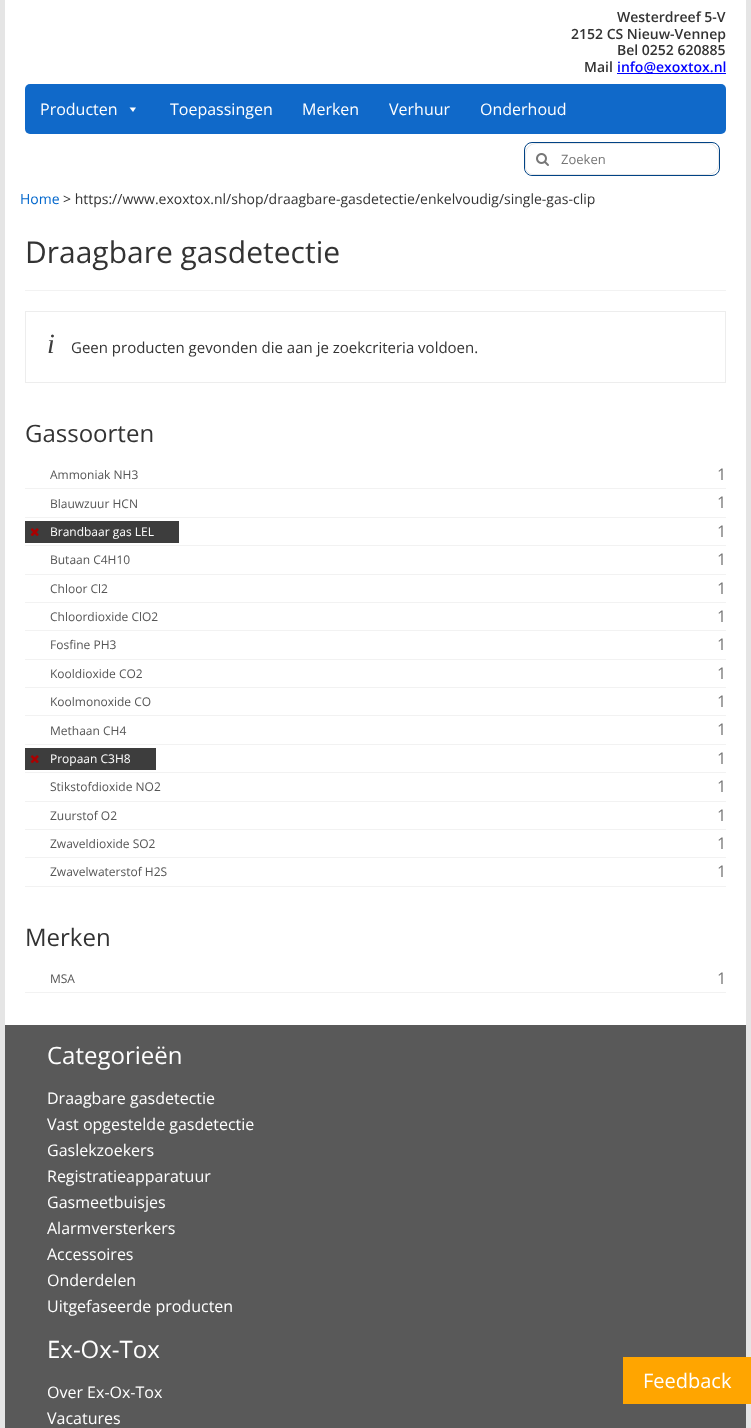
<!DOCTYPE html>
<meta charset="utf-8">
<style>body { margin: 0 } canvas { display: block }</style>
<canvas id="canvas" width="751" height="1428"></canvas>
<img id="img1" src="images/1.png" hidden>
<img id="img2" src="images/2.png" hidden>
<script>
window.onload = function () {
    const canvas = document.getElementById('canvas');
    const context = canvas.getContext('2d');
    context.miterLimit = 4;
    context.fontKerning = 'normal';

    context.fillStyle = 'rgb(229, 229, 229)';
    context.fillRect(0, 0, 751, 1428);
    context.fillStyle = 'rgb(255, 255, 255)';
    context.fillRect(5, 0, 741, 1025);
    context.fillStyle = 'rgb(0, 0, 255)';
    context.fillRect(617, 73, 109, 1);
    context.fillStyle = 'rgb(16, 105, 201)';
    context.beginPath();
    context.roundRect(25, 84, 701, 50, 5);
    context.fill();
    context.fillStyle = 'rgb(255, 255, 255)';
    context.beginPath();
    context.moveTo(136, 107.5);
    context.lineTo(133, 112);
    context.lineTo(129.5, 107.5);
    context.closePath();
    context.fill();
    context.beginPath();
    context.roundRect(524.5, 142.5, 195, 33, 7.5);
    context.strokeStyle = 'rgb(1, 67, 133)';
    context.stroke();
    context.beginPath();
    context.roundRect(525, 143, 194, 32, [11, 11, 11, 8]);
    context.fill();
    context.beginPath();
    context.roundRect(525.5, 143.5, 193, 31, [10.5, 10.5, 10.5, 7.5]);
    context.strokeStyle = 'rgba(196, 196, 196, 0.4)';
    context.stroke();
    context.drawImage(document.getElementById('img1'), 536, 153, 13, 13);
    context.fillStyle = 'rgb(89, 89, 89)';
    context.fillRect(5, 1025, 741, 403);
    context.fillStyle = 'rgb(255, 165, 0)';
    context.fillRect(623, 1357, 128, 47);
    context.fillStyle = 'rgb(242, 242, 242)';
    context.fillRect(25, 290, 701, 1);
    context.strokeStyle = 'rgb(237, 237, 237)';
    context.strokeRect(25.5, 311.5, 700, 71);
    context.fillRect(25, 488, 701, 1);
    context.fillRect(25, 517, 701, 1);
    context.fillRect(25, 545, 701, 1);
    context.fillStyle = 'rgb(61, 61, 61)';
    context.fillRect(25, 521, 154, 22);
    context.drawImage(document.getElementById('img2'), 30, 528, 9, 8);
    context.fillStyle = 'rgb(242, 242, 242)';
    context.fillRect(25, 574, 701, 1);
    context.fillRect(25, 602, 701, 1);
    context.fillRect(25, 630, 701, 1);
    context.fillRect(25, 659, 701, 1);
    context.fillRect(25, 687, 701, 1);
    context.fillRect(25, 715, 701, 1);
    context.fillRect(25, 744, 701, 1);
    context.fillRect(25, 772, 701, 1);
    context.fillStyle = 'rgb(61, 61, 61)';
    context.fillRect(25, 748, 131, 22);
    context.drawImage(document.getElementById('img2'), 30, 755, 9, 8);
    context.fillStyle = 'rgb(242, 242, 242)';
    context.fillRect(25, 801, 701, 1);
    context.fillRect(25, 829, 701, 1);
    context.fillRect(25, 857, 701, 1);
    context.fillRect(25, 886, 701, 1);
    context.fillRect(25, 992, 701, 1);
    context.font = '600 14px Open Sans';
    context.fillStyle = 'rgb(51, 51, 51)';
    context.fillText('Westerdreef 5-V', 617, 22);
    context.fillText('2152 CS Nieuw-Vennep', 571, 39);
    context.fillText('Bel 0252 620885', 617, 55);
    context.fillText('Mail', 584, 72);
    context.fillStyle = 'rgb(0, 0, 255)';
    context.fillText('info@exoxtox.nl', 617, 72);
    context.font = '16px Open Sans';
    context.fillStyle = 'rgb(255, 255, 255)';
    context.fillText('Producten', 40, 115);
    context.fillText('Toepassingen', 170, 115);
    context.fillText('Merken', 302, 115);
    context.fillText('Verhuur', 389, 115);
    context.fillText('Onderhoud', 480, 115);
    context.font = '13px Open Sans';
    context.fillStyle = 'rgb(117, 117, 117)';
    context.fillText('Zoeken', 561, 164);
    context.font = '14px Open Sans';
    context.fillStyle = 'rgb(0, 102, 204)';
    context.fillText('Home', 20, 204);
    context.fillStyle = 'rgb(51, 51, 51)';
    context.fillText('> https://www.exoxtox.nl/shop/draagbare-gasdetectie/enkelvoudig/single-gas-clip', 63, 204);
    context.font = '20px Open Sans';
    context.fillStyle = 'rgb(255, 255, 255)';
    context.fillText('Feedback', 643, 1388);
    context.font = '30px Open Sans';
    context.fillStyle = 'rgb(51, 51, 51)';
    context.fillText('Draagbare gasdetectie', 25, 263);
    context.font = 'italic 28px Liberation Serif';
    context.fillStyle = 'rgb(61, 61, 61)';
    context.fillText('i', 47, 353);
    context.font = '15px Open Sans';
    context.fillStyle = 'rgb(51, 51, 51)';
    context.fillText('Geen producten gevonden die aan je zoekcriteria voldoen.', 71, 353);
    context.font = '24px Open Sans';
    context.fillText('Gassoorten', 25, 442);
    context.font = '12px Open Sans';
    context.fillStyle = 'rgb(85, 85, 85)';
    context.fillText('Ammoniak NH3', 50, 479);
    context.font = '16px Open Sans';
    context.fillStyle = 'rgb(117, 117, 117)';
    context.fillText('1', 717, 480);
    context.font = '12px Open Sans';
    context.fillStyle = 'rgb(85, 85, 85)';
    context.fillText('Blauwzuur HCN', 50, 508);
    context.font = '16px Open Sans';
    context.fillStyle = 'rgb(117, 117, 117)';
    context.fillText('1', 717, 508);
    context.font = '12px Open Sans';
    context.fillStyle = 'rgb(255, 255, 255)';
    context.fillText('Brandbaar gas LEL', 50, 536);
    context.font = '16px Open Sans';
    context.fillStyle = 'rgb(117, 117, 117)';
    context.fillText('1', 717, 537);
    context.font = '12px Open Sans';
    context.fillStyle = 'rgb(85, 85, 85)';
    context.fillText('Butaan C4H10', 50, 564);
    context.font = '16px Open Sans';
    context.fillStyle = 'rgb(117, 117, 117)';
    context.fillText('1', 717, 565);
    context.font = '12px Open Sans';
    context.fillStyle = 'rgb(85, 85, 85)';
    context.fillText('Chloor Cl2', 50, 593);
    context.font = '16px Open Sans';
    context.fillStyle = 'rgb(117, 117, 117)';
    context.fillText('1', 717, 594);
    context.font = '12px Open Sans';
    context.fillStyle = 'rgb(85, 85, 85)';
    context.fillText('Chloordioxide ClO2', 50, 621);
    context.font = '16px Open Sans';
    context.fillStyle = 'rgb(117, 117, 117)';
    context.fillText('1', 717, 622);
    context.font = '12px Open Sans';
    context.fillStyle = 'rgb(85, 85, 85)';
    context.fillText('Fosfine PH3', 50, 649);
    context.font = '16px Open Sans';
    context.fillStyle = 'rgb(117, 117, 117)';
    context.fillText('1', 717, 650);
    context.font = '12px Open Sans';
    context.fillStyle = 'rgb(85, 85, 85)';
    context.fillText('Kooldioxide CO2', 50, 678);
    context.font = '16px Open Sans';
    context.fillStyle = 'rgb(117, 117, 117)';
    context.fillText('1', 717, 679);
    context.font = '12px Open Sans';
    context.fillStyle = 'rgb(85, 85, 85)';
    context.fillText('Koolmonoxide CO', 50, 706);
    context.font = '16px Open Sans';
    context.fillStyle = 'rgb(117, 117, 117)';
    context.fillText('1', 717, 707);
    context.font = '12px Open Sans';
    context.fillStyle = 'rgb(85, 85, 85)';
    context.fillText('Methaan CH4', 50, 735);
    context.font = '16px Open Sans';
    context.fillStyle = 'rgb(117, 117, 117)';
    context.fillText('1', 717, 735);
    context.font = '12px Open Sans';
    context.fillStyle = 'rgb(255, 255, 255)';
    context.fillText('Propaan C3H8', 50, 763);
    context.font = '16px Open Sans';
    context.fillStyle = 'rgb(117, 117, 117)';
    context.fillText('1', 717, 764);
    context.font = '12px Open Sans';
    context.fillStyle = 'rgb(85, 85, 85)';
    context.fillText('Stikstofdioxide NO2', 50, 791);
    context.font = '16px Open Sans';
    context.fillStyle = 'rgb(117, 117, 117)';
    context.fillText('1', 717, 792);
    context.font = '12px Open Sans';
    context.fillStyle = 'rgb(85, 85, 85)';
    context.fillText('Zuurstof O2', 50, 820);
    context.font = '16px Open Sans';
    context.fillStyle = 'rgb(117, 117, 117)';
    context.fillText('1', 717, 821);
    context.font = '12px Open Sans';
    context.fillStyle = 'rgb(85, 85, 85)';
    context.fillText('Zwaveldioxide SO2', 50, 848);
    context.font = '16px Open Sans';
    context.fillStyle = 'rgb(117, 117, 117)';
    context.fillText('1', 717, 849);
    context.font = '12px Open Sans';
    context.fillStyle = 'rgb(85, 85, 85)';
    context.fillText('Zwavelwaterstof H2S', 50, 876);
    context.font = '16px Open Sans';
    context.fillStyle = 'rgb(117, 117, 117)';
    context.fillText('1', 717, 877);
    context.font = '24px Open Sans';
    context.fillStyle = 'rgb(51, 51, 51)';
    context.fillText('Merken', 25, 946);
    context.font = '12px Open Sans';
    context.fillStyle = 'rgb(85, 85, 85)';
    context.fillText('MSA', 50, 983);
    context.font = '16px Open Sans';
    context.fillStyle = 'rgb(117, 117, 117)';
    context.fillText('1', 717, 984);
    context.font = '24px Open Sans';
    context.fillStyle = 'rgb(255, 255, 255)';
    context.fillText('Categorieën', 47, 1064);
    context.font = '16px Open Sans';
    context.fillText('Draagbare gasdetectie', 47, 1104);
    context.fillText('Vast opgestelde gasdetectie', 47, 1130);
    context.fillText('Gaslekzoekers', 47, 1156);
    context.fillText('Registratieapparatuur', 47, 1182);
    context.fillText('Gasmeetbuisjes', 47, 1208);
    context.fillText('Alarmversterkers', 47, 1234);
    context.fillText('Accessoires', 47, 1260);
    context.fillText('Onderdelen', 47, 1286);
    context.fillText('Uitgefaseerde producten', 47, 1312);
    context.font = '24px Open Sans';
    context.fillText('Ex-Ox-Tox', 47, 1358);
    context.font = '16px Open Sans';
    context.fillText('Over Ex-Ox-Tox', 47, 1398);
    context.fillText('Vacatures', 47, 1424);
};
</script>
